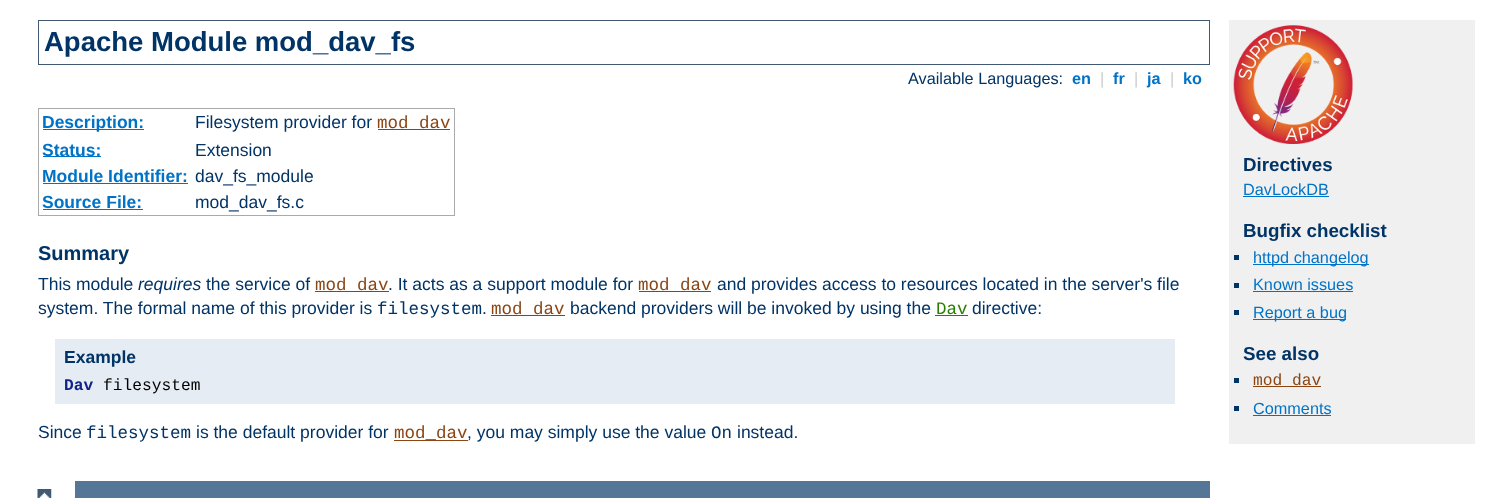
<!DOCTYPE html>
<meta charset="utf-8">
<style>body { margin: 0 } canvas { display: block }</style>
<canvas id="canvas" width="1492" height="498"></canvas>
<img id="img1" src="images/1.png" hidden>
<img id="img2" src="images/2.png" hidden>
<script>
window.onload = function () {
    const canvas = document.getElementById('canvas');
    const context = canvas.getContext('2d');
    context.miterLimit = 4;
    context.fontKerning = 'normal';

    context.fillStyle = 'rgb(255, 255, 255)';
    context.fillRect(0, 0, 1492, 498);
    context.strokeStyle = 'rgb(64, 88, 113)';
    context.strokeRect(38.5, 20.5, 1171, 44);
    context.fillStyle = 'rgb(170, 170, 170)';
    context.fillRect(38, 108, 417, 1);
    context.fillRect(454, 108, 1, 108);
    context.fillRect(38, 215, 417, 1);
    context.fillRect(38, 108, 1, 108);
    context.fillStyle = 'rgb(0, 115, 199)';
    context.fillRect(43, 129, 101, 1);
    context.fillStyle = 'rgb(139, 69, 19)';
    context.fillRect(378, 129, 72, 1);
    context.fillStyle = 'rgb(0, 115, 199)';
    context.fillRect(43, 156, 58, 1);
    context.fillRect(43, 183, 145, 1);
    context.fillRect(43, 209, 100, 1);
    context.fillStyle = 'rgb(139, 69, 19)';
    context.fillRect(315, 291, 74, 1);
    context.fillRect(639, 291, 72, 1);
    context.fillRect(491, 315, 74, 1);
    context.fillStyle = 'rgb(40, 127, 0)';
    context.fillRect(935, 315, 33, 1);
    context.fillStyle = 'rgb(229, 236, 243)';
    context.fillRect(55, 339, 1120, 65);
    context.fillStyle = 'rgb(139, 69, 19)';
    context.fillRect(394, 440, 74, 1);
    context.fillStyle = 'rgb(240, 240, 240)';
    context.fillRect(1229, 20, 246, 424);
    context.drawImage(document.getElementById('img1'), 1233, 25, 120, 119);
    context.fillStyle = 'rgb(0, 115, 199)';
    context.fillRect(1243, 196, 86, 1);
    context.fillStyle = 'rgb(0, 51, 102)';
    context.fillRect(1234, 255, 5, 5);
    context.fillStyle = 'rgb(0, 115, 199)';
    context.fillRect(1253, 264, 116, 1);
    context.fillStyle = 'rgb(0, 51, 102)';
    context.fillRect(1234, 283, 5, 5);
    context.fillStyle = 'rgb(0, 115, 199)';
    context.fillRect(1253, 291, 100, 1);
    context.fillStyle = 'rgb(0, 51, 102)';
    context.fillRect(1234, 310, 5, 5);
    context.fillStyle = 'rgb(0, 115, 199)';
    context.fillRect(1253, 319, 93, 1);
    context.fillStyle = 'rgb(0, 51, 102)';
    context.fillRect(1234, 378, 5, 5);
    context.fillStyle = 'rgb(139, 69, 19)';
    context.fillRect(1253, 386, 68, 1);
    context.fillStyle = 'rgb(0, 51, 102)';
    context.fillRect(1234, 406, 5, 5);
    context.fillStyle = 'rgb(0, 115, 199)';
    context.fillRect(1253, 415, 78, 1);
    context.drawImage(document.getElementById('img2'), 37, 489, 15, 9);
    context.fillStyle = 'rgb(85, 118, 151)';
    context.fillRect(75, 481, 1135, 17);
    context.font = 'bold 27.5px Liberation Sans';
    context.fillStyle = 'rgb(0, 51, 102)';
    context.fillText('Apache Module mod_dav_fs', 44, 51);
    context.font = '16.25px Liberation Sans';
    context.fillText('Available Languages:', 908, 84);
    context.font = 'bold 16.25px Liberation Sans';
    context.fillStyle = 'rgb(0, 115, 199)';
    context.fillText('en', 1072, 84);
    context.font = '16.25px Liberation Sans';
    context.fillStyle = 'rgb(204, 204, 204)';
    context.fillText('|', 1100, 84);
    context.font = 'bold 16.25px Liberation Sans';
    context.fillStyle = 'rgb(0, 115, 199)';
    context.fillText('fr', 1113, 84);
    context.font = '16.25px Liberation Sans';
    context.fillStyle = 'rgb(204, 204, 204)';
    context.fillText('|', 1134, 84);
    context.font = 'bold 16.25px Liberation Sans';
    context.fillStyle = 'rgb(0, 115, 199)';
    context.fillText('ja', 1147, 84);
    context.font = '16.25px Liberation Sans';
    context.fillStyle = 'rgb(204, 204, 204)';
    context.fillText('|', 1170, 84);
    context.font = 'bold 16.25px Liberation Sans';
    context.fillStyle = 'rgb(0, 115, 199)';
    context.fillText('ko', 1183, 84);
    context.font = 'bold 17.5px Liberation Sans';
    context.fillText('Description:', 42, 128);
    context.font = '17.5px Liberation Sans';
    context.fillStyle = 'rgb(0, 51, 102)';
    context.fillText('Filesystem provider for', 195, 128);
    context.font = '17.5px Liberation Mono';
    context.fillStyle = 'rgb(139, 69, 19)';
    context.fillText('mod_dav', 377, 128);
    context.font = 'bold 17.5px Liberation Sans';
    context.fillStyle = 'rgb(0, 115, 199)';
    context.fillText('Status:', 42, 156);
    context.font = '17.5px Liberation Sans';
    context.fillStyle = 'rgb(0, 51, 102)';
    context.fillText('Extension', 195, 156);
    context.font = 'bold 17.5px Liberation Sans';
    context.fillStyle = 'rgb(0, 115, 199)';
    context.fillText('Module Identifier:', 42, 182);
    context.font = '17.5px Liberation Sans';
    context.fillStyle = 'rgb(0, 51, 102)';
    context.fillText('dav_fs_module', 195, 182);
    context.font = 'bold 17.5px Liberation Sans';
    context.fillStyle = 'rgb(0, 115, 199)';
    context.fillText('Source File:', 42, 208);
    context.font = '17.5px Liberation Sans';
    context.fillStyle = 'rgb(0, 51, 102)';
    context.fillText('mod_dav_fs.c', 195, 208);
    context.font = 'bold 20px Liberation Sans';
    context.fillText('Summary', 38, 260);
    context.font = '17.5px Liberation Sans';
    context.fillText('This module', 38, 290);
    context.font = 'italic 17.5px Liberation Sans';
    context.fillText('requires', 138, 290);
    context.font = '17.5px Liberation Sans';
    context.fillText('the service of', 206, 290);
    context.font = '17.5px Liberation Mono';
    context.fillStyle = 'rgb(139, 69, 19)';
    context.fillText('mod_dav', 315, 290);
    context.font = '17.5px Liberation Sans';
    context.fillStyle = 'rgb(0, 51, 102)';
    context.fillText('. It acts as a support module for', 388, 290);
    context.font = '17.5px Liberation Mono';
    context.fillStyle = 'rgb(139, 69, 19)';
    context.fillText('mod_dav', 638, 290);
    context.font = '17.5px Liberation Sans';
    context.fillStyle = 'rgb(0, 51, 102)';
    context.fillText('and provides access to resources located in the server\'s file', 717, 290);
    context.fillText('system. The formal name of this provider is', 38, 314);
    context.font = '17.5px Liberation Mono';
    context.fillText('filesystem', 377, 314);
    context.font = '17.5px Liberation Sans';
    context.fillText('.', 482, 314);
    context.font = '17.5px Liberation Mono';
    context.fillStyle = 'rgb(139, 69, 19)';
    context.fillText('mod_dav', 491, 314);
    context.font = '17.5px Liberation Sans';
    context.fillStyle = 'rgb(0, 51, 102)';
    context.fillText('backend providers will be invoked by using the', 570, 314);
    context.font = '17.5px Liberation Mono';
    context.fillStyle = 'rgb(40, 127, 0)';
    context.fillText('Dav', 936, 314);
    context.font = '17.5px Liberation Sans';
    context.fillStyle = 'rgb(0, 51, 102)';
    context.fillText('directive:', 972, 314);
    context.font = 'bold 17.5px Liberation Sans';
    context.fillText('Example', 64, 363);
    context.font = 'bold 16.25px Liberation Mono';
    context.fillStyle = 'rgb(17, 34, 136)';
    context.fillText('Dav', 64, 390);
    context.font = '16.25px Liberation Mono';
    context.fillStyle = 'rgb(0, 0, 0)';
    context.fillText('filesystem', 103, 390);
    context.font = '17.5px Liberation Sans';
    context.fillStyle = 'rgb(0, 51, 102)';
    context.fillText('Since', 38, 438);
    context.font = '17.5px Liberation Mono';
    context.fillText('filesystem', 86, 438);
    context.font = '17.5px Liberation Sans';
    context.fillText('is the default provider for', 196, 438);
    context.font = '17.5px Liberation Mono';
    context.fillStyle = 'rgb(139, 69, 19)';
    context.fillText('mod_dav', 394, 438);
    context.font = '17.5px Liberation Sans';
    context.fillStyle = 'rgb(0, 51, 102)';
    context.fillText(', you may simply use the value', 467, 438);
    context.font = '17.5px Liberation Mono';
    context.fillText('On', 711, 438);
    context.font = '17.5px Liberation Sans';
    context.fillText('instead.', 737, 438);
    context.font = 'bold 18.75px Liberation Sans';
    context.fillText('Directives', 1243, 171);
    context.font = '16.25px Liberation Sans';
    context.fillStyle = 'rgb(0, 115, 199)';
    context.fillText('DavLockDB', 1243, 195);
    context.font = 'bold 18.75px Liberation Sans';
    context.fillStyle = 'rgb(0, 51, 102)';
    context.fillText('Bugfix checklist', 1243, 237);
    context.font = '16.25px Liberation Sans';
    context.fillStyle = 'rgb(0, 115, 199)';
    context.fillText('httpd changelog', 1253, 263);
    context.fillText('Known issues', 1253, 290);
    context.fillText('Report a bug', 1253, 318);
    context.font = 'bold 18.75px Liberation Sans';
    context.fillStyle = 'rgb(0, 51, 102)';
    context.fillText('See also', 1243, 360);
    context.font = '16.25px Liberation Mono';
    context.fillStyle = 'rgb(139, 69, 19)';
    context.fillText('mod_dav', 1253, 385);
    context.font = '16.25px Liberation Sans';
    context.fillStyle = 'rgb(0, 115, 199)';
    context.fillText('Comments', 1253, 414);
};
</script>
